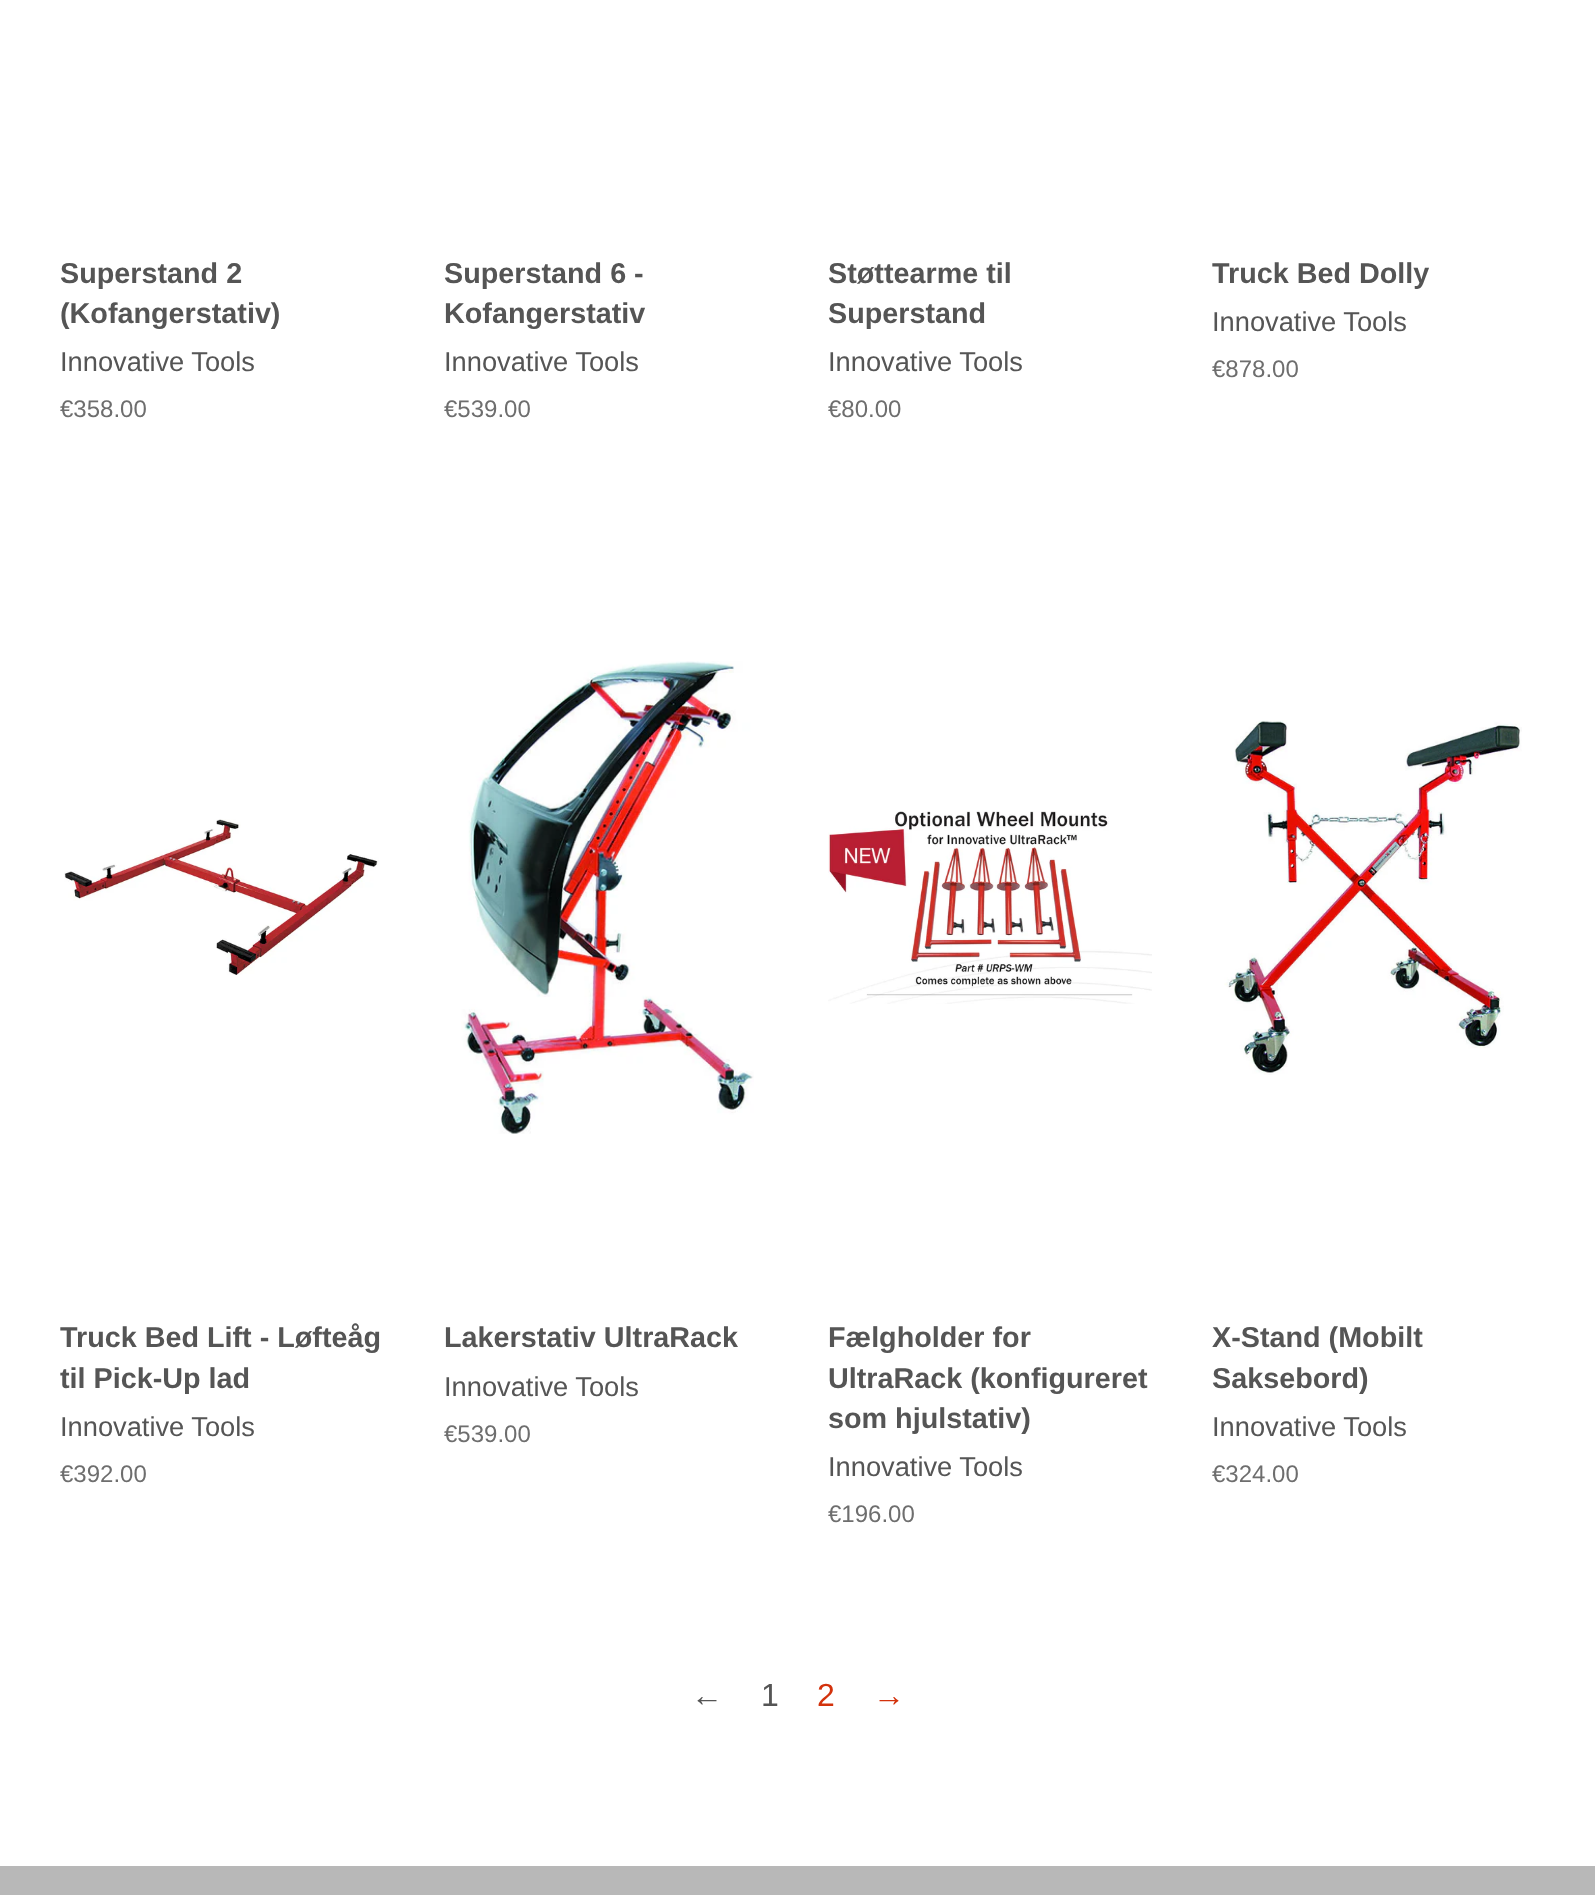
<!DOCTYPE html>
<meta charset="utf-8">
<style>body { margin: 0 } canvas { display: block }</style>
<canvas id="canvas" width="1595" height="1895"></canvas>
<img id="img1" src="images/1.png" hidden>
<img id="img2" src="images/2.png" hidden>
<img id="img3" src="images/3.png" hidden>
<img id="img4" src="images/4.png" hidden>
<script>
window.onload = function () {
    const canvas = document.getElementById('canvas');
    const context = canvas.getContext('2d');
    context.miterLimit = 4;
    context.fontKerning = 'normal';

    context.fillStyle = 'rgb(255, 255, 255)';
    context.fillRect(0, 0, 1595, 1895);
    context.drawImage(document.getElementById('img1'), 64, 819, 315, 156);
    context.drawImage(document.getElementById('img2'), 461, 661, 293, 473);
    context.drawImage(document.getElementById('img3'), 828, 811, 324, 193);
    context.drawImage(document.getElementById('img4'), 1224, 720, 298, 355);
    context.fillStyle = 'rgb(184, 184, 184)';
    context.fillRect(0, 1866, 1595, 29);
    context.font = 'bold 28.75px Liberation Sans';
    context.fillStyle = 'rgb(85, 85, 85)';
    context.fillText('Superstand 2', 60, 283);
    context.fillText('(Kofangerstativ)', 60, 323);
    context.font = '27.25px Liberation Sans';
    context.fillText('Innovative Tools', 60, 371);
    context.font = '24px Liberation Sans';
    context.fillStyle = 'rgb(110, 110, 110)';
    context.fillText('€358.00', 60, 417);
    context.font = 'bold 28.75px Liberation Sans';
    context.fillStyle = 'rgb(85, 85, 85)';
    context.fillText('Superstand 6 -', 444, 283);
    context.fillText('Kofangerstativ', 444, 323);
    context.font = '27.25px Liberation Sans';
    context.fillText('Innovative Tools', 444, 371);
    context.font = '24px Liberation Sans';
    context.fillStyle = 'rgb(110, 110, 110)';
    context.fillText('€539.00', 444, 417);
    context.font = 'bold 28.75px Liberation Sans';
    context.fillStyle = 'rgb(85, 85, 85)';
    context.fillText('Støttearme til', 828, 283);
    context.fillText('Superstand', 828, 323);
    context.font = '27.25px Liberation Sans';
    context.fillText('Innovative Tools', 828, 371);
    context.font = '24px Liberation Sans';
    context.fillStyle = 'rgb(110, 110, 110)';
    context.fillText('€80.00', 828, 417);
    context.font = 'bold 28.75px Liberation Sans';
    context.fillStyle = 'rgb(85, 85, 85)';
    context.fillText('Truck Bed Dolly', 1212, 283);
    context.font = '27.25px Liberation Sans';
    context.fillText('Innovative Tools', 1212, 331);
    context.font = '24px Liberation Sans';
    context.fillStyle = 'rgb(110, 110, 110)';
    context.fillText('€878.00', 1212, 377);
    context.font = 'bold 28.75px Liberation Sans';
    context.fillStyle = 'rgb(85, 85, 85)';
    context.fillText('Truck Bed Lift - Løfteåg', 60, 1347);
    context.fillText('til Pick-Up lad', 60, 1388);
    context.font = '27.25px Liberation Sans';
    context.fillText('Innovative Tools', 60, 1436);
    context.font = '24px Liberation Sans';
    context.fillStyle = 'rgb(110, 110, 110)';
    context.fillText('€392.00', 60, 1482);
    context.font = 'bold 28.75px Liberation Sans';
    context.fillStyle = 'rgb(85, 85, 85)';
    context.fillText('Lakerstativ UltraRack', 444, 1347);
    context.font = '27.25px Liberation Sans';
    context.fillText('Innovative Tools', 444, 1396);
    context.font = '24px Liberation Sans';
    context.fillStyle = 'rgb(110, 110, 110)';
    context.fillText('€539.00', 444, 1442);
    context.font = 'bold 28.75px Liberation Sans';
    context.fillStyle = 'rgb(85, 85, 85)';
    context.fillText('Fælgholder for', 828, 1347);
    context.fillText('UltraRack (konfigureret', 828, 1388);
    context.fillText('som hjulstativ)', 828, 1428);
    context.font = '27.25px Liberation Sans';
    context.fillText('Innovative Tools', 828, 1476);
    context.font = '24px Liberation Sans';
    context.fillStyle = 'rgb(110, 110, 110)';
    context.fillText('€196.00', 828, 1522);
    context.font = 'bold 28.75px Liberation Sans';
    context.fillStyle = 'rgb(85, 85, 85)';
    context.fillText('X-Stand (Mobilt', 1212, 1347);
    context.fillText('Saksebord)', 1212, 1388);
    context.font = '27.25px Liberation Sans';
    context.fillText('Innovative Tools', 1212, 1436);
    context.font = '24px Liberation Sans';
    context.fillStyle = 'rgb(110, 110, 110)';
    context.fillText('€324.00', 1212, 1482);
    context.font = '32px Liberation Sans';
    context.fillStyle = 'rgb(85, 85, 85)';
    context.fillText('←', 691, 1706);
    context.fillText('1', 761, 1706);
    context.fillStyle = 'rgb(211, 50, 12)';
    context.fillText('2', 817, 1706);
    context.fillText('→', 873, 1706);
};
</script>
